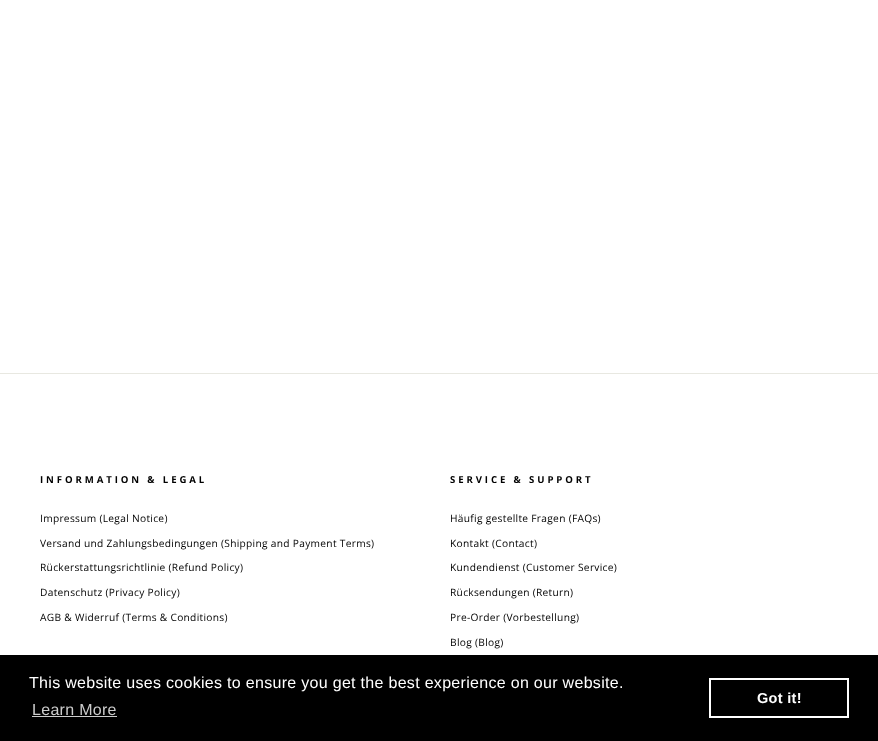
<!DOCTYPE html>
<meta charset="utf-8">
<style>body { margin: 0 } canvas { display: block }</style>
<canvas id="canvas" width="878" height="741"></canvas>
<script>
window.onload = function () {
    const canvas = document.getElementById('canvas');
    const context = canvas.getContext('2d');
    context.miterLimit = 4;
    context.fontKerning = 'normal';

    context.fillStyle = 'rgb(255, 255, 255)';
    context.fillRect(0, 0, 878, 741);
    context.fillStyle = 'rgb(232, 232, 225)';
    context.fillRect(0, 373, 878, 1);
    context.fillStyle = 'rgb(0, 0, 0)';
    context.fillRect(0, 655, 878, 86);
    context.fillStyle = 'rgb(204, 204, 204)';
    context.fillRect(32, 716, 85, 1);
    context.strokeStyle = 'rgb(255, 255, 255)';
    context.lineWidth = 2;
    context.strokeRect(710, 679, 138, 38);
    context.letterSpacing = '2.9px';
    context.font = 'bold 9.6px Open Sans';
    context.fillStyle = 'rgb(0, 0, 0)';
    context.fillText('INFORMATION & LEGAL', 40, 483);
    context.letterSpacing = '0.3px';
    context.font = '10.2px Open Sans';
    context.fillText('Impressum (Legal Notice)', 40, 522);
    context.fillText('Versand und Zahlungsbedingungen (Shipping and Payment Terms)', 40, 547);
    context.fillText('Rückerstattungsrichtlinie (Refund Policy)', 40, 571);
    context.fillText('Datenschutz (Privacy Policy)', 40, 596);
    context.fillText('AGB & Widerruf (Terms & Conditions)', 40, 621);
    context.letterSpacing = '2.9px';
    context.font = 'bold 9.6px Open Sans';
    context.fillText('SERVICE & SUPPORT', 450, 483);
    context.letterSpacing = '0.3px';
    context.font = '10.2px Open Sans';
    context.fillText('Häufig gestellte Fragen (FAQs)', 450, 522);
    context.fillText('Kontakt (Contact)', 450, 547);
    context.fillText('Kundendienst (Customer Service)', 450, 571);
    context.fillText('Rücksendungen (Return)', 450, 596);
    context.fillText('Pre-Order (Vorbestellung)', 450, 621);
    context.fillText('Blog (Blog)', 450, 646);
    context.font = '16px Liberation Sans';
    context.fillStyle = 'rgb(255, 255, 255)';
    context.fillText('This website uses cookies to ensure you get the best experience on our website.', 29, 688);
    context.fillStyle = 'rgb(204, 204, 204)';
    context.fillText('Learn More', 32, 715);
    context.font = 'bold 14.5px Liberation Sans';
    context.fillStyle = 'rgb(255, 255, 255)';
    context.fillText('Got it!', 757, 703);
};
</script>
